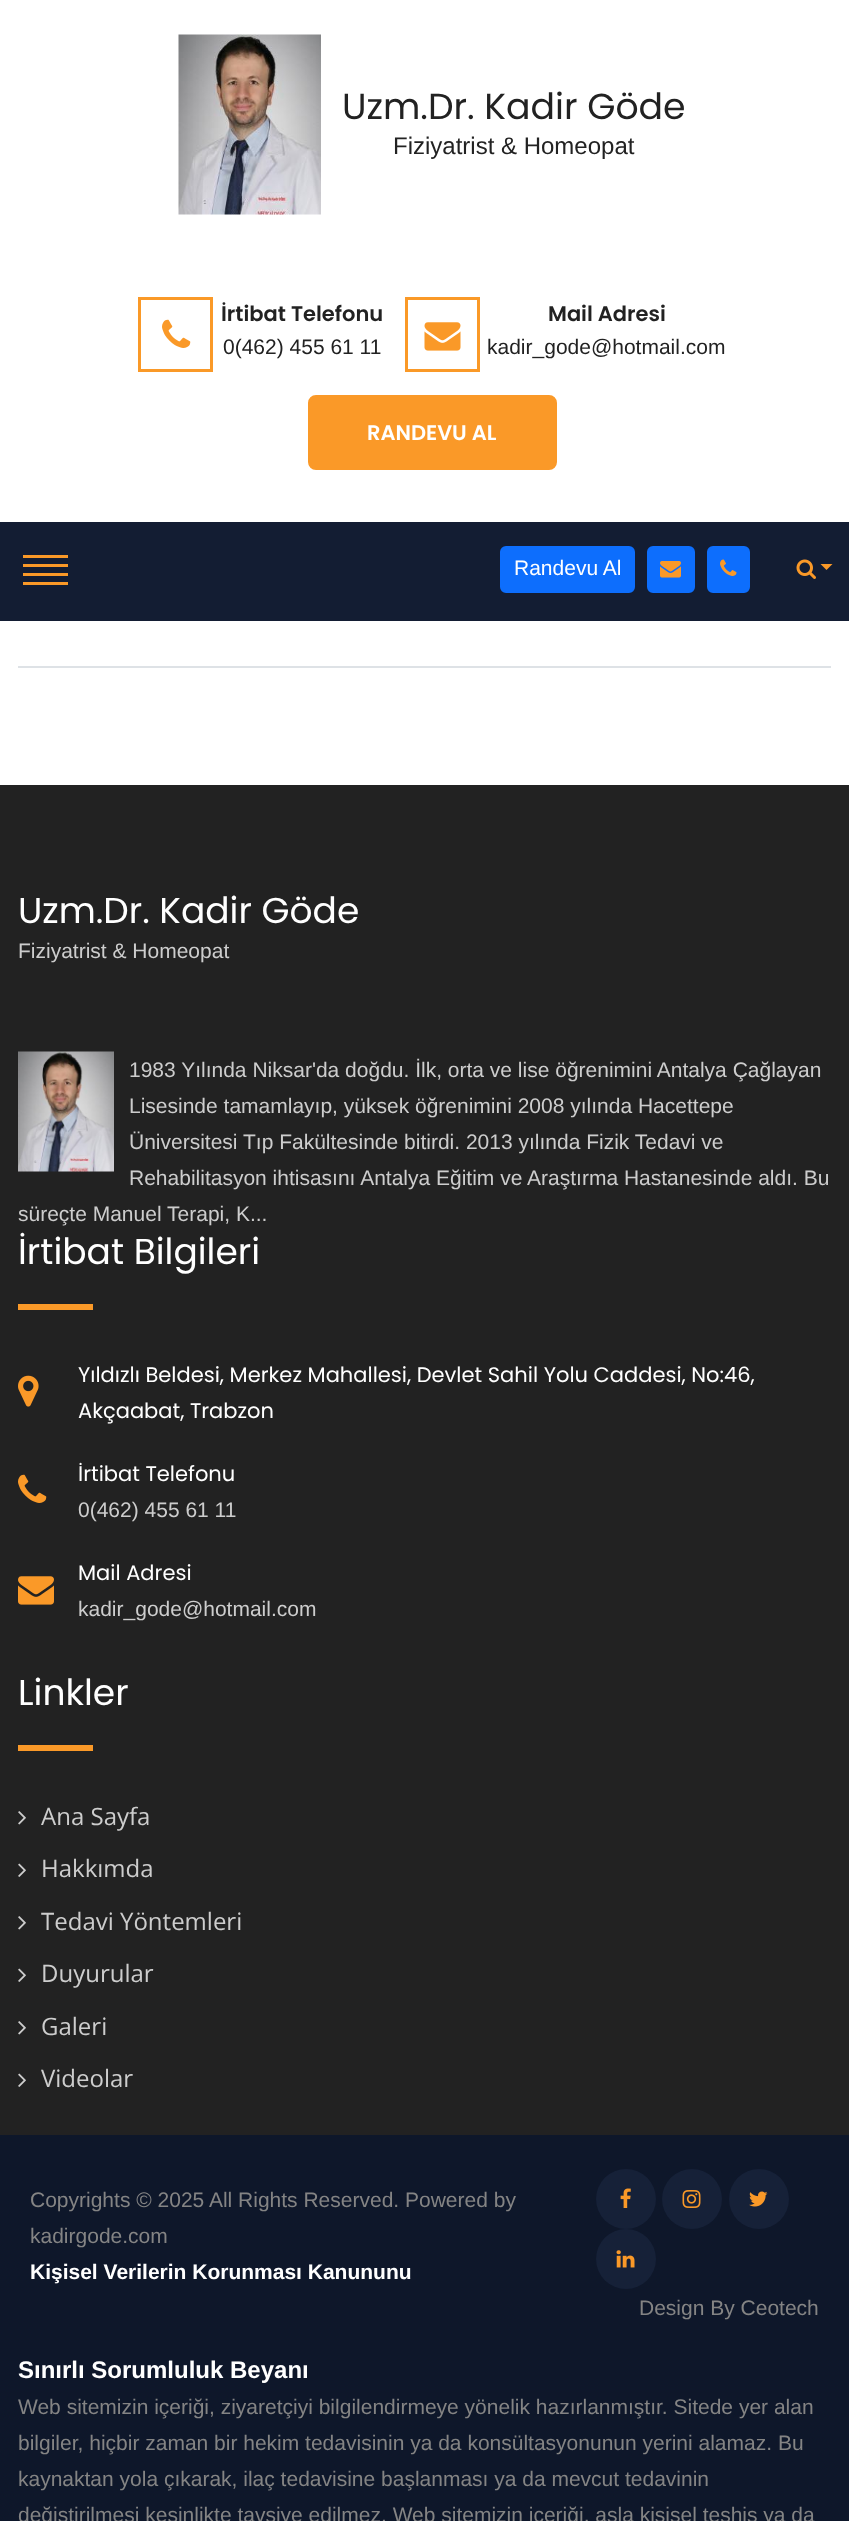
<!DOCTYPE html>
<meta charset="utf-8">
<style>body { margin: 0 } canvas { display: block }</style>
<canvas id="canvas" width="849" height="2521"></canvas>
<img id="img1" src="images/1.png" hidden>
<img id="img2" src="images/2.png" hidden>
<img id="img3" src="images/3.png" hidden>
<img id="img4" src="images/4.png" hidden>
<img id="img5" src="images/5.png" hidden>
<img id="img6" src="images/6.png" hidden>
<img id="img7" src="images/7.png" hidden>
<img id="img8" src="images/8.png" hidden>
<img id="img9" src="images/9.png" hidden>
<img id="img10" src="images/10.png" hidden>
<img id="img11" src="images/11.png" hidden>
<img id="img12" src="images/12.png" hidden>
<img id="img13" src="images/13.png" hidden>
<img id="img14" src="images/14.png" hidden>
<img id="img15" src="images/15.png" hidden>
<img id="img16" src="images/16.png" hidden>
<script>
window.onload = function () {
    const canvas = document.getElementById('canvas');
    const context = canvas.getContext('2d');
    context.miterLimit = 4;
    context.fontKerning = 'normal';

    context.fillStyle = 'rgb(255, 255, 255)';
    context.fillRect(0, 0, 849, 2521);
    context.drawImage(document.getElementById('img1'), 178, 34, 143, 181);
    context.strokeStyle = 'rgb(250, 153, 40)';
    context.lineWidth = 3;
    context.strokeRect(139.5, 298.5, 72, 72);
    context.drawImage(document.getElementById('img2'), 162, 319, 29, 29);
    context.strokeRect(406.5, 298.5, 72, 72);
    context.drawImage(document.getElementById('img3'), 424, 322, 37, 29);
    context.fillStyle = 'rgb(250, 153, 40)';
    context.beginPath();
    context.roundRect(309.5, 396.5, 246, 72, 6.5);
    context.fill();
    context.stroke();
    context.fillStyle = 'rgb(19, 29, 51)';
    context.fillRect(0, 522, 849, 99);
    context.fillStyle = 'rgb(250, 153, 40)';
    context.fillRect(23, 555, 45, 3);
    context.fillRect(23, 564, 45, 3);
    context.fillRect(23, 573, 45, 3);
    context.fillRect(23, 582, 45, 3);
    context.fillStyle = 'rgb(13, 110, 253)';
    context.beginPath();
    context.roundRect(501, 547, 133, 45, 5);
    context.fill();
    context.strokeStyle = 'rgb(13, 110, 253)';
    context.lineWidth = 2;
    context.stroke();
    context.beginPath();
    context.roundRect(648, 547, 46, 45, 5);
    context.fill();
    context.stroke();
    context.drawImage(document.getElementById('img4'), 660, 561, 21, 17);
    context.beginPath();
    context.roundRect(708, 547, 41, 45, 5);
    context.fill();
    context.stroke();
    context.drawImage(document.getElementById('img5'), 720, 559, 17, 17);
    context.drawImage(document.getElementById('img6'), 796, 559, 20, 20);
    context.fillStyle = 'rgb(250, 153, 40)';
    context.beginPath();
    context.moveTo(820.5, 564);
    context.lineTo(832.5, 564);
    context.lineTo(826.5, 570);
    context.closePath();
    context.fill();
    context.fillStyle = 'rgb(222, 226, 230)';
    context.fillRect(18, 666, 813, 2);
    context.fillStyle = 'rgb(34, 34, 34)';
    context.fillRect(0, 785, 849, 1350);
    context.drawImage(document.getElementById('img7'), 18, 1051, 96, 121);
    context.fillStyle = 'rgb(250, 153, 40)';
    context.fillRect(18, 1304, 75, 6);
    context.drawImage(document.getElementById('img8'), 18, 1375, 21, 32);
    context.drawImage(document.getElementById('img9'), 18, 1474, 29, 29);
    context.drawImage(document.getElementById('img10'), 18, 1576, 36, 29);
    context.fillRect(18, 1745, 75, 6);
    context.drawImage(document.getElementById('img11'), 18, 1811, 8, 14);
    context.drawImage(document.getElementById('img12'), 18, 1863, 8, 14);
    context.drawImage(document.getElementById('img11'), 18, 1916, 8, 14);
    context.drawImage(document.getElementById('img12'), 18, 1968, 8, 14);
    context.drawImage(document.getElementById('img11'), 18, 2021, 8, 14);
    context.drawImage(document.getElementById('img12'), 18, 2073, 8, 14);
    context.fillStyle = 'rgb(14, 23, 42)';
    context.fillRect(0, 2135, 849, 386);
    context.fillStyle = 'rgb(22, 33, 56)';
    context.beginPath();
    context.arc(626, 2199, 30, 0, 2 * Math.PI);
    context.fill();
    context.drawImage(document.getElementById('img13'), 620, 2188, 11, 20);
    context.beginPath();
    context.arc(692, 2199, 30, 0, 2 * Math.PI);
    context.fill();
    context.drawImage(document.getElementById('img14'), 682, 2190, 19, 18);
    context.beginPath();
    context.arc(759, 2199, 30, 0, 2 * Math.PI);
    context.fill();
    context.drawImage(document.getElementById('img15'), 749, 2191, 19, 16);
    context.beginPath();
    context.arc(626, 2259, 30, 0, 2 * Math.PI);
    context.fill();
    context.drawImage(document.getElementById('img16'), 616, 2250, 19, 18);
    context.font = '36.25px Poppins';
    context.fillStyle = 'rgb(34, 34, 34)';
    context.fillText('Uzm.Dr. Kadir Göde', 342, 119);
    context.font = '24px Liberation Sans';
    context.fillText('Fiziyatrist & Homeopat', 393, 154);
    context.font = '600 21px Poppins';
    context.fillText('İrtibat Telefonu', 221, 321);
    context.font = '21px Liberation Sans';
    context.fillText('0(462) 455 61 11', 223, 354);
    context.font = '600 21px Poppins';
    context.fillText('Mail Adresi', 548, 321);
    context.font = '21px Liberation Sans';
    context.fillText('kadir_gode@hotmail.com', 487, 354);
    context.font = '600 21px Poppins';
    context.fillStyle = 'rgb(255, 255, 255)';
    context.fillText('RANDEVU AL', 367, 440);
    context.font = '21px Liberation Sans';
    context.fillText('Randevu Al', 514, 575);
    context.font = '36px Poppins';
    context.fillText('Uzm.Dr. Kadir Göde', 18, 923);
    context.font = '21px Liberation Sans';
    context.fillStyle = 'rgb(205, 205, 205)';
    context.fillText('Fiziyatrist & Homeopat', 18, 958);
    context.fillText('1983 Yılında Niksar\'da doğdu. İlk, orta ve lise öğrenimini Antalya Çağlayan', 129, 1077);
    context.fillText('Lisesinde tamamlayıp, yüksek öğrenimini 2008 yılında Hacettepe', 129, 1113);
    context.fillText('Üniversitesi Tıp Fakültesinde bitirdi. 2013 yılında Fizik Tedavi ve', 129, 1149);
    context.fillText('Rehabilitasyon ihtisasını Antalya Eğitim ve Araştırma Hastanesinde aldı. Bu', 129, 1185);
    context.fillText('süreçte Manuel Terapi, K...', 18, 1221);
    context.font = '36px Poppins';
    context.fillStyle = 'rgb(255, 255, 255)';
    context.fillText('İrtibat Bilgileri', 18, 1264);
    context.font = '21px Poppins';
    context.fillText('Yıldızlı Beldesi, Merkez Mahallesi, Devlet Sahil Yolu Caddesi, No:46,', 78, 1382);
    context.fillText('Akçaabat, Trabzon', 78, 1418);
    context.fillText('İrtibat Telefonu', 78, 1481);
    context.font = '21px Liberation Sans';
    context.fillStyle = 'rgb(205, 205, 205)';
    context.fillText('0(462) 455 61 11', 78, 1517);
    context.font = '21px Poppins';
    context.fillStyle = 'rgb(255, 255, 255)';
    context.fillText('Mail Adresi', 78, 1580);
    context.font = '21px Liberation Sans';
    context.fillStyle = 'rgb(205, 205, 205)';
    context.fillText('kadir_gode@hotmail.com', 78, 1616);
    context.font = '36px Poppins';
    context.fillStyle = 'rgb(255, 255, 255)';
    context.fillText('Linkler', 18, 1705);
    context.font = '24px Open Sans';
    context.fillStyle = 'rgb(205, 205, 205)';
    context.fillText('Ana Sayfa', 41, 1825);
    context.fillText('Hakkımda', 41, 1877);
    context.fillText('Tedavi Yöntemleri', 41, 1930);
    context.fillText('Duyurular', 41, 1982);
    context.fillText('Galeri', 41, 2035);
    context.fillText('Videolar', 41, 2087);
    context.font = '21px Liberation Sans';
    context.fillStyle = 'rgb(132, 132, 132)';
    context.fillText('Copyrights © 2025 All Rights Reserved. Powered by', 30, 2207);
    context.fillText('kadirgode.com', 30, 2243);
    context.font = 'bold 21px Liberation Sans';
    context.fillStyle = 'rgb(255, 255, 255)';
    context.fillText('Kişisel Verilerin Korunması Kanununu', 30, 2279);
    context.font = '21px Liberation Sans';
    context.fillStyle = 'rgb(132, 132, 132)';
    context.fillText('Design By Ceotech', 639, 2315);
    context.font = 'bold 24px Liberation Sans';
    context.fillStyle = 'rgb(255, 255, 255)';
    context.fillText('Sınırlı Sorumluluk Beyanı', 18, 2378);
    context.font = '21px Liberation Sans';
    context.fillStyle = 'rgb(132, 132, 132)';
    context.fillText('Web sitemizin içeriği, ziyaretçiyi bilgilendirmeye yönelik hazırlanmıştır. Sitede yer alan', 18, 2414);
    context.fillText('bilgiler, hiçbir zaman bir hekim tedavisinin ya da konsültasyonunun yerini alamaz. Bu', 18, 2450);
    context.fillText('kaynaktan yola çıkarak, ilaç tedavisine başlanması ya da mevcut tedavinin', 18, 2486);
    context.fillText('değiştirilmesi kesinlikte tavsiye edilmez. Web sitemizin içeriği, asla kişisel teşhis ya da', 18, 2522);
};
</script>
